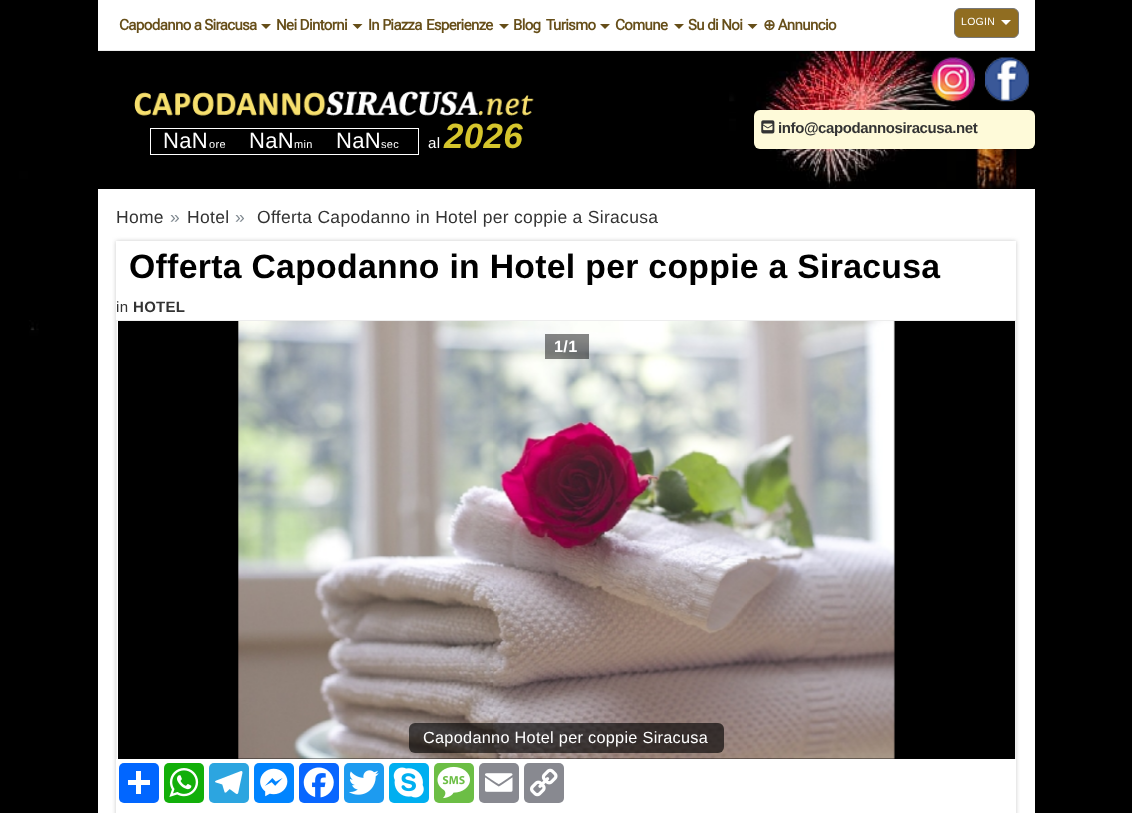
<!DOCTYPE html>
<meta charset="utf-8">
<style>body { margin: 0 } canvas { display: block }</style>
<canvas id="canvas" width="1132" height="813"></canvas>
<img id="img1" src="images/1.png" hidden>
<img id="img2" src="images/2.png" hidden>
<img id="img3" src="images/3.png" hidden>
<img id="img4" src="images/4.png" hidden>
<img id="img5" src="images/5.png" hidden>
<img id="img6" src="images/6.png" hidden>
<img id="img7" src="images/7.png" hidden>
<img id="img8" src="images/8.png" hidden>
<img id="img9" src="images/9.png" hidden>
<img id="img10" src="images/10.png" hidden>
<img id="img11" src="images/11.png" hidden>
<img id="img12" src="images/12.png" hidden>
<img id="img13" src="images/13.png" hidden>
<img id="img14" src="images/14.png" hidden>
<img id="img15" src="images/15.png" hidden>
<img id="img16" src="images/16.png" hidden>
<script>
window.onload = function () {
    const canvas = document.getElementById('canvas');
    const context = canvas.getContext('2d');
    context.miterLimit = 4;
    context.fontKerning = 'normal';

    context.fillStyle = 'rgb(255, 255, 255)';
    context.fillRect(0, 0, 1132, 813);
    context.drawImage(document.getElementById('img1'), 0, 0, 1132, 813);
    context.fillRect(98, 0, 937, 50);
    context.fillStyle = 'rgb(236, 236, 236)';
    context.fillRect(98, 50, 937, 1);
    context.fillStyle = 'rgb(102, 78, 25)';
    context.beginPath();
    context.moveTo(261, 24);
    context.lineTo(271, 24);
    context.lineTo(266, 29);
    context.closePath();
    context.fill();
    context.beginPath();
    context.moveTo(352.5, 24);
    context.lineTo(362.5, 24);
    context.lineTo(357.5, 29);
    context.closePath();
    context.fill();
    context.beginPath();
    context.moveTo(499, 24);
    context.lineTo(509, 24);
    context.lineTo(504, 29);
    context.closePath();
    context.fill();
    context.beginPath();
    context.moveTo(600, 24);
    context.lineTo(610, 24);
    context.lineTo(605, 29);
    context.closePath();
    context.fill();
    context.beginPath();
    context.moveTo(674, 24);
    context.lineTo(684, 24);
    context.lineTo(679, 29);
    context.closePath();
    context.fill();
    context.beginPath();
    context.moveTo(747.5, 24);
    context.lineTo(757.5, 24);
    context.lineTo(752.5, 29);
    context.closePath();
    context.fill();
    context.fillStyle = 'rgb(144, 109, 33)';
    context.beginPath();
    context.roundRect(954.5, 8.5, 64, 29, 5.5);
    context.fill();
    context.strokeStyle = 'rgb(119, 119, 119)';
    context.stroke();
    context.fillStyle = 'rgb(255, 255, 255)';
    context.beginPath();
    context.moveTo(1001, 20);
    context.lineTo(1011, 20);
    context.lineTo(1006, 25);
    context.closePath();
    context.fill();
    context.drawImage(document.getElementById('img2'), 729, 51, 288, 138);
    context.drawImage(document.getElementById('img3'), 134, 91, 400, 25);
    context.strokeStyle = 'rgb(255, 255, 255)';
    context.strokeRect(150.5, 128.5, 268, 26);
    context.drawImage(document.getElementById('img4'), 931, 57, 44, 45);
    context.drawImage(document.getElementById('img5'), 985, 57, 44, 45);
    context.fillStyle = 'rgb(254, 250, 217)';
    context.beginPath();
    context.roundRect(754, 110, 281, 39, 6);
    context.fill();
    context.drawImage(document.getElementById('img6'), 761, 120, 14, 14);
    context.fillStyle = 'rgb(255, 255, 255)';
    context.fillRect(98, 189, 937, 624);
    context.fillStyle = 'rgb(202, 202, 202)';
    context.filter = 'blur(2px)';
    context.beginPath();
    context.rect(116, 241, 900, 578);
    context.fill();
    context.filter = 'none';
    context.fillStyle = 'rgb(255, 255, 255)';
    context.fillRect(116, 241, 900, 572);
    context.fillStyle = 'rgb(237, 237, 237)';
    context.fillRect(116, 320, 900, 1);
    context.fillRect(1015, 320, 1, 439);
    context.fillRect(116, 320, 1, 439);
    context.fillStyle = 'rgb(0, 0, 0)';
    context.fillRect(118, 321, 897, 438);
    context.drawImage(document.getElementById('img7'), 238, 321, 657, 438);
    context.fillStyle = 'rgba(0, 0, 0, 0.47)';
    context.fillRect(545, 334, 44, 25);
    context.fillStyle = 'rgba(0, 0, 0, 0.63)';
    context.beginPath();
    context.roundRect(409, 723, 315, 30, 6);
    context.fill();
    context.fillStyle = 'rgb(1, 102, 255)';
    context.beginPath();
    context.roundRect(119, 763, 40, 40, 5);
    context.fill();
    context.fillStyle = 'rgb(255, 255, 255)';
    context.fillRect(136, 771, 5, 23);
    context.fillRect(128, 780, 22, 5);
    context.fillStyle = 'rgb(18, 175, 10)';
    context.beginPath();
    context.roundRect(164, 763, 40, 40, 5);
    context.fill();
    context.drawImage(document.getElementById('img8'), 169, 768, 30, 29);
    context.fillStyle = 'rgb(44, 165, 224)';
    context.beginPath();
    context.roundRect(209, 763, 40, 40, 5);
    context.fill();
    context.drawImage(document.getElementById('img9'), 215, 771, 28, 23);
    context.fillStyle = 'rgb(0, 132, 255)';
    context.beginPath();
    context.roundRect(254, 763, 40, 40, 5);
    context.fill();
    context.drawImage(document.getElementById('img10'), 260, 768, 28, 29);
    context.fillStyle = 'rgb(8, 102, 255)';
    context.beginPath();
    context.roundRect(299, 763, 40, 40, 5);
    context.fill();
    context.drawImage(document.getElementById('img11'), 303, 767, 31, 31);
    context.fillStyle = 'rgb(29, 155, 240)';
    context.beginPath();
    context.roundRect(344, 763, 40, 40, 5);
    context.fill();
    context.drawImage(document.getElementById('img12'), 349, 770, 30, 25);
    context.fillStyle = 'rgb(0, 175, 240)';
    context.beginPath();
    context.roundRect(389, 763, 40, 40, 5);
    context.fill();
    context.drawImage(document.getElementById('img13'), 393, 767, 31, 31);
    context.fillStyle = 'rgb(108, 190, 69)';
    context.beginPath();
    context.roundRect(434, 763, 40, 40, 5);
    context.fill();
    context.drawImage(document.getElementById('img14'), 437, 766, 33, 33);
    context.fillStyle = 'rgb(136, 137, 144)';
    context.beginPath();
    context.roundRect(479, 763, 40, 40, 5);
    context.fill();
    context.drawImage(document.getElementById('img15'), 485, 773, 28, 19);
    context.beginPath();
    context.roundRect(524, 763, 40, 40, 5);
    context.fill();
    context.drawImage(document.getElementById('img16'), 530, 768, 28, 29);
    context.letterSpacing = '-0.6px';
    context.font = 'bold 15px Roboto Flex';
    context.fillStyle = 'rgb(102, 78, 25)';
    context.fillText('Capodanno a Siracusa', 119, 30);
    context.fillText('Nei Dintorni', 276, 30);
    context.fillText('In Piazza', 368, 30);
    context.fillText('Esperienze', 426, 30);
    context.fillText('Blog', 513, 30);
    context.fillText('Turismo', 546, 30);
    context.fillText('Comune', 615, 30);
    context.fillText('Su di Noi', 688, 30);
    context.font = 'bold 15px DejaVu Sans';
    context.fillText('⊕', 763, 30);
    context.font = 'bold 15px Roboto Flex';
    context.fillText('Annuncio', 778, 30);
    context.letterSpacing = '0.3px';
    context.font = '10.5px Liberation Sans';
    context.fillStyle = 'rgb(255, 255, 255)';
    context.fillText('LOGIN', 961, 25);
    context.font = '22px Liberation Sans';
    context.fillText('NaN', 163, 148);
    context.font = '11px Liberation Sans';
    context.fillText('ore', 209, 148);
    context.font = '22px Liberation Sans';
    context.fillText('NaN', 249, 148);
    context.font = '11px Liberation Sans';
    context.fillText('min', 294, 148);
    context.font = '22px Liberation Sans';
    context.fillText('NaN', 336, 148);
    context.font = '11px Liberation Sans';
    context.fillText('sec', 381, 148);
    context.font = '15px Liberation Sans';
    context.fillText('al', 428, 148);
    context.font = 'italic bold 35px Liberation Sans';
    context.fillStyle = 'rgb(213, 197, 44)';
    context.fillText('2026', 444, 148);
    context.letterSpacing = '-0.4px';
    context.font = 'bold 15px Liberation Sans';
    context.fillStyle = 'rgb(51, 51, 51)';
    context.fillText('info@capodannosiracusa.net', 778, 133);
    context.letterSpacing = '0.3px';
    context.font = '17.5px Liberation Sans';
    context.fillText('Home', 116, 223);
    context.fillStyle = 'rgb(129, 138, 145)';
    context.fillText('»', 170, 223);
    context.fillStyle = 'rgb(51, 51, 51)';
    context.fillText('Hotel', 187, 223);
    context.fillStyle = 'rgb(129, 138, 145)';
    context.fillText('»', 235, 223);
    context.fillStyle = 'rgb(51, 51, 51)';
    context.fillText('Offerta Capodanno in Hotel per coppie a Siracusa', 257, 223);
    context.font = 'bold 33.75px Liberation Sans';
    context.fillStyle = 'rgb(0, 0, 0)';
    context.fillText('Offerta Capodanno in Hotel per coppie a Siracusa', 129, 278);
    context.font = '15px Liberation Sans';
    context.fillStyle = 'rgb(51, 51, 51)';
    context.fillText('in', 116, 312);
    context.font = 'bold 15px Liberation Sans';
    context.fillText('HOTEL', 133, 312);
    context.font = 'bold 16.25px Liberation Sans';
    context.fillStyle = 'rgb(255, 255, 255)';
    context.fillText('1/1', 554, 352);
    context.font = '16.25px Liberation Sans';
    context.fillText('Capodanno Hotel per coppie Siracusa', 423, 743);
};
</script>
